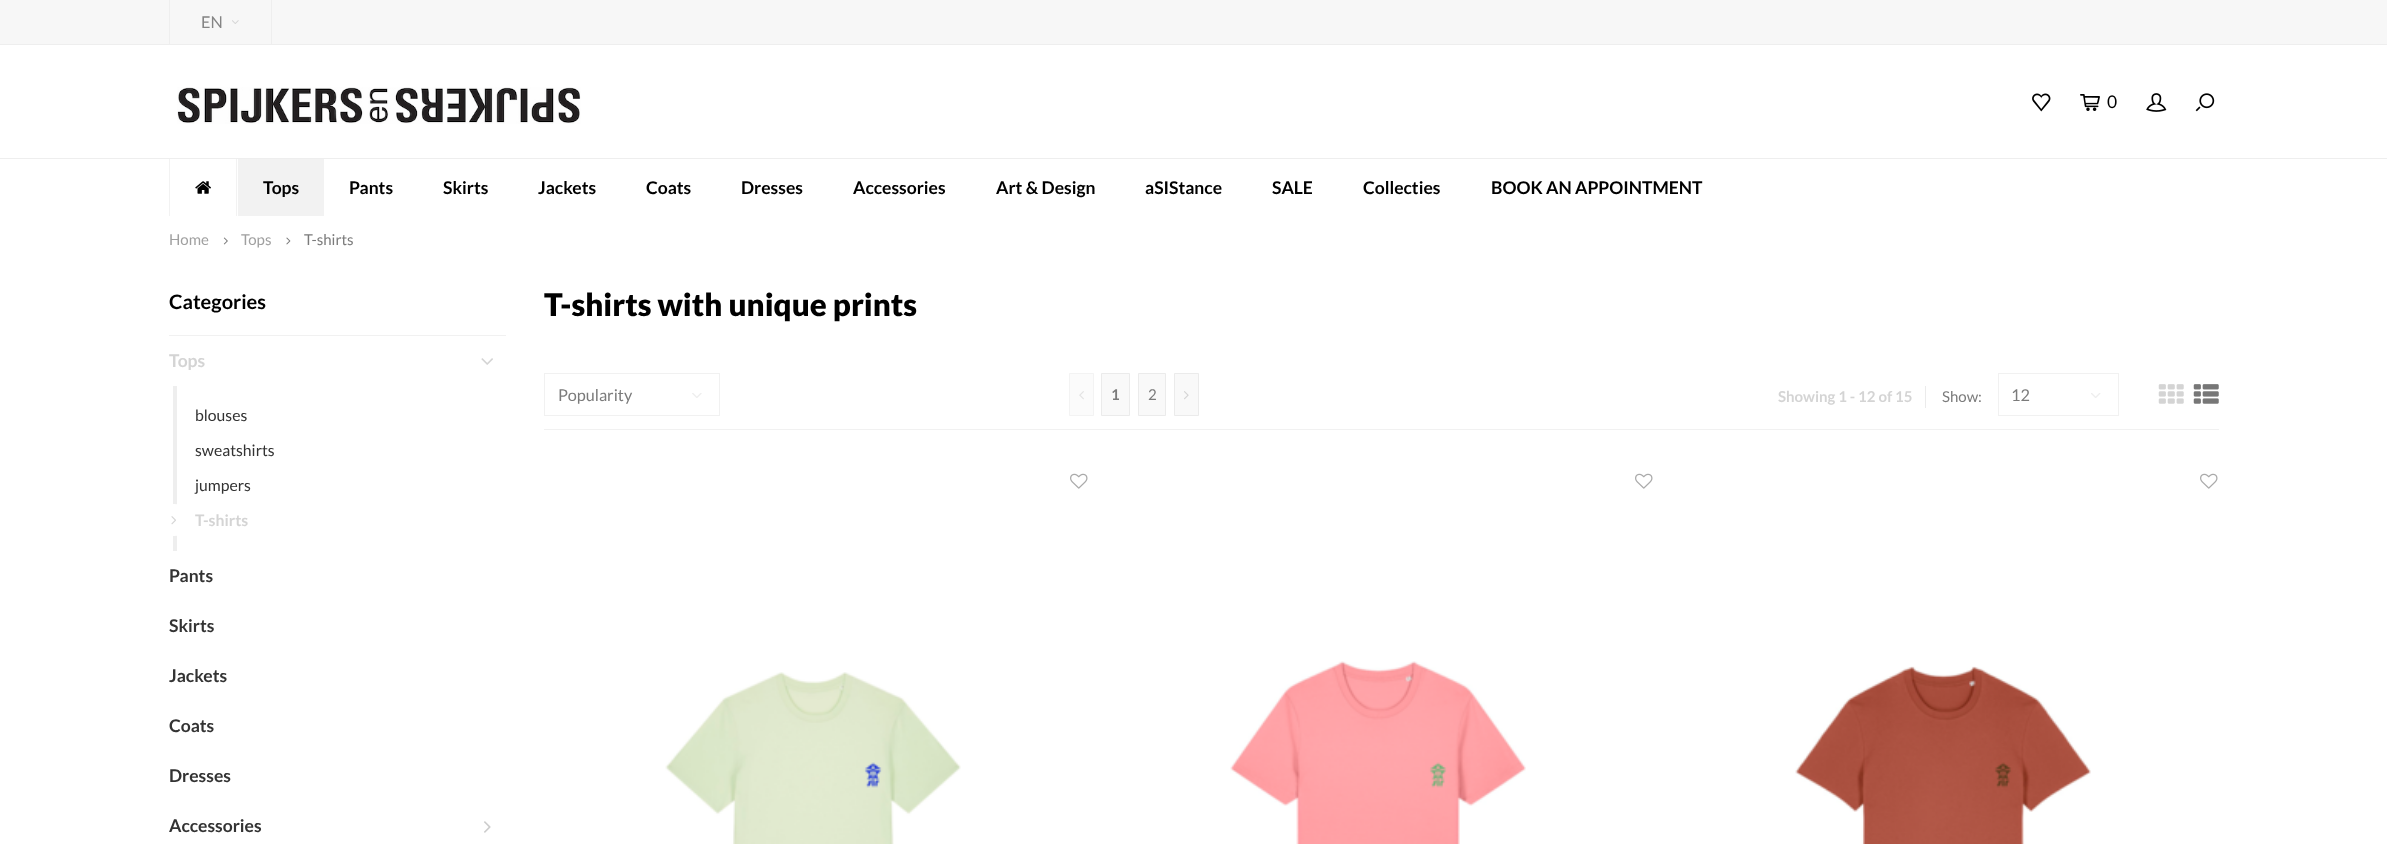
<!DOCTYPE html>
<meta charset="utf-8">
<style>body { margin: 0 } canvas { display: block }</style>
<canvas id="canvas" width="2387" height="844"></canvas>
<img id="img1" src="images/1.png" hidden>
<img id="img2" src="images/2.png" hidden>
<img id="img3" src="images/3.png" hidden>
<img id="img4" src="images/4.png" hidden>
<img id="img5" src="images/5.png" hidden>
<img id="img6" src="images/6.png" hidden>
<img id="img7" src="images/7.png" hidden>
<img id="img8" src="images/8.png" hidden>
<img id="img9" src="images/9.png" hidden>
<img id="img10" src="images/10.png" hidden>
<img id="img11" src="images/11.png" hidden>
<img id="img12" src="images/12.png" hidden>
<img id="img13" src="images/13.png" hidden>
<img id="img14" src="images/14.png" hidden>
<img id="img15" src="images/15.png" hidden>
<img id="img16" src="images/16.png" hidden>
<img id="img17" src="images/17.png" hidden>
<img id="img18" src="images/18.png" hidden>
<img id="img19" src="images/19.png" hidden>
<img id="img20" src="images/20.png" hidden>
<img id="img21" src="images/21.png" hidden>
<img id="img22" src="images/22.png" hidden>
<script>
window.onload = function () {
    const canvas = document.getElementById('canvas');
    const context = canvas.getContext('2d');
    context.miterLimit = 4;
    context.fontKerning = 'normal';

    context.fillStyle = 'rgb(255, 255, 255)';
    context.fillRect(0, 0, 2387, 844);
    context.fillStyle = 'rgb(247, 247, 247)';
    context.fillRect(0, 0, 2387, 44);
    context.fillStyle = 'rgb(238, 238, 238)';
    context.fillRect(0, 44, 2387, 1);
    context.fillRect(271, 0, 1, 44);
    context.fillRect(169, 0, 1, 44);
    context.drawImage(document.getElementById('img1'), 232, 20, 7, 4);
    context.fillRect(0, 158, 2387, 1);
    context.drawImage(document.getElementById('img2'), 177, 87, 404, 37);
    context.drawImage(document.getElementById('img3'), 2032, 93, 19, 19);
    context.drawImage(document.getElementById('img4'), 2080, 94, 20, 17);
    context.drawImage(document.getElementById('img5'), 2146, 93, 21, 19);
    context.drawImage(document.getElementById('img6'), 2195, 93, 20, 19);
    context.fillStyle = 'rgb(242, 242, 242)';
    context.fillRect(236, 159, 1, 57);
    context.fillRect(169, 159, 1, 57);
    context.drawImage(document.getElementById('img7'), 195, 181, 16, 13);
    context.fillRect(238, 159, 86, 57);
    context.drawImage(document.getElementById('img8'), 223, 237, 5, 8);
    context.drawImage(document.getElementById('img9'), 286, 237, 5, 8);
    context.fillStyle = 'rgb(241, 241, 241)';
    context.fillRect(169, 335, 337, 1);
    context.drawImage(document.getElementById('img10'), 481, 358, 12, 7);
    context.fillStyle = 'rgb(238, 238, 238)';
    context.fillRect(173, 386, 4, 165);
    context.fillStyle = 'rgb(255, 255, 255)';
    context.beginPath();
    context.arc(174, 520, 16, 0, 2 * Math.PI);
    context.fill();
    context.drawImage(document.getElementById('img11'), 171, 516, 5, 9);
    context.drawImage(document.getElementById('img12'), 484, 821, 7, 12);
    context.fillStyle = 'rgb(241, 241, 241)';
    context.fillRect(544, 429, 1675, 1);
    context.strokeStyle = 'rgb(241, 241, 241)';
    context.strokeRect(544.5, 373.5, 175, 42);
    context.drawImage(document.getElementById('img13'), 692, 393, 10, 5);
    context.fillStyle = 'rgb(251, 251, 251)';
    context.beginPath();
    context.rect(1069.5, 373.5, 24, 42);
    context.fill();
    context.strokeStyle = 'rgb(243, 243, 243)';
    context.stroke();
    context.drawImage(document.getElementById('img14'), 1079, 391, 5, 9);
    context.fillStyle = 'rgb(249, 249, 249)';
    context.beginPath();
    context.rect(1101.5, 373.5, 28, 42);
    context.fill();
    context.strokeStyle = 'rgb(235, 235, 235)';
    context.stroke();
    context.beginPath();
    context.rect(1138.5, 373.5, 27, 42);
    context.fill();
    context.stroke();
    context.beginPath();
    context.rect(1174.5, 373.5, 24, 42);
    context.fill();
    context.stroke();
    context.drawImage(document.getElementById('img15'), 1184, 391, 5, 9);
    context.fillStyle = 'rgb(235, 235, 235)';
    context.fillRect(1925, 386, 1, 22);
    context.strokeStyle = 'rgb(241, 241, 241)';
    context.strokeRect(1998.5, 373.5, 120, 42);
    context.drawImage(document.getElementById('img16'), 2091, 393, 10, 5);
    context.drawImage(document.getElementById('img17'), 2158, 384, 26, 20);
    context.drawImage(document.getElementById('img18'), 2193, 384, 26, 20);
    context.drawImage(document.getElementById('img19'), 1070, 473, 18, 16);
    context.drawImage(document.getElementById('img20'), 665, 672, 296, 172);
    context.drawImage(document.getElementById('img19'), 1635, 473, 18, 16);
    context.drawImage(document.getElementById('img21'), 1230, 661, 296, 183);
    context.drawImage(document.getElementById('img19'), 2200, 473, 18, 16);
    context.drawImage(document.getElementById('img22'), 1795, 666, 296, 178);
    context.font = '16.25px Lato';
    context.fillStyle = 'rgb(133, 133, 133)';
    context.fillText('EN', 201, 28);
    context.font = '17.5px Lato';
    context.fillStyle = 'rgb(0, 0, 0)';
    context.fillText('0', 2107, 108);
    context.font = 'bold 17.5px Lato';
    context.fillText('Tops', 263, 194);
    context.fillText('Pants', 349, 194);
    context.fillText('Skirts', 443, 194);
    context.fillText('Jackets', 538, 194);
    context.fillText('Coats', 646, 194);
    context.fillText('Dresses', 741, 194);
    context.fillText('Accessories', 853, 194);
    context.fillText('Art & Design', 996, 194);
    context.fillText('aSIStance', 1145, 194);
    context.fillText('SALE', 1272, 194);
    context.fillText('Collecties', 1363, 194);
    context.fillText('BOOK AN APPOINTMENT', 1491, 194);
    context.font = '15px Lato';
    context.fillStyle = 'rgb(160, 160, 160)';
    context.fillText('Home', 169, 245);
    context.fillText('Tops', 241, 245);
    context.fillStyle = 'rgb(123, 123, 123)';
    context.fillText('T-shirts', 304, 245);
    context.font = 'bold 20px Lato';
    context.fillStyle = 'rgb(0, 0, 0)';
    context.fillText('Categories', 169, 309);
    context.font = 'bold 17.5px Lato';
    context.fillStyle = 'rgb(212, 212, 212)';
    context.fillText('Tops', 169, 367);
    context.font = '15.75px Lato';
    context.fillStyle = 'rgb(51, 51, 51)';
    context.fillText('blouses', 195, 421);
    context.fillText('sweatshirts', 195, 456);
    context.fillText('jumpers', 195, 491);
    context.font = 'bold 15.75px Lato';
    context.fillStyle = 'rgb(212, 212, 212)';
    context.fillText('T-shirts', 195, 526);
    context.font = 'bold 17.5px Lato';
    context.fillStyle = 'rgb(51, 51, 51)';
    context.fillText('Pants', 169, 582);
    context.fillText('Skirts', 169, 632);
    context.fillText('Jackets', 169, 682);
    context.fillText('Coats', 169, 732);
    context.fillText('Dresses', 169, 782);
    context.fillText('Accessories', 169, 832);
    context.font = '900 31.25px Lato';
    context.fillStyle = 'rgb(0, 0, 0)';
    context.fillText('T-shirts with unique prints', 544, 316);
    context.font = '16.25px Lato';
    context.fillStyle = 'rgb(123, 123, 123)';
    context.fillText('Popularity', 558, 401);
    context.font = 'bold 15px Lato';
    context.fillText('1', 1111, 400);
    context.font = '15px Lato';
    context.fillText('2', 1148, 400);
    context.font = 'bold 15px Lato';
    context.fillStyle = 'rgb(212, 212, 212)';
    context.fillText('Showing 1 - 12 of 15', 1778, 402);
    context.font = '15px Lato';
    context.fillStyle = 'rgb(123, 123, 123)';
    context.fillText('Show:', 1942, 402);
    context.font = '16.25px Lato';
    context.fillText('12', 2011, 401);
};
</script>
